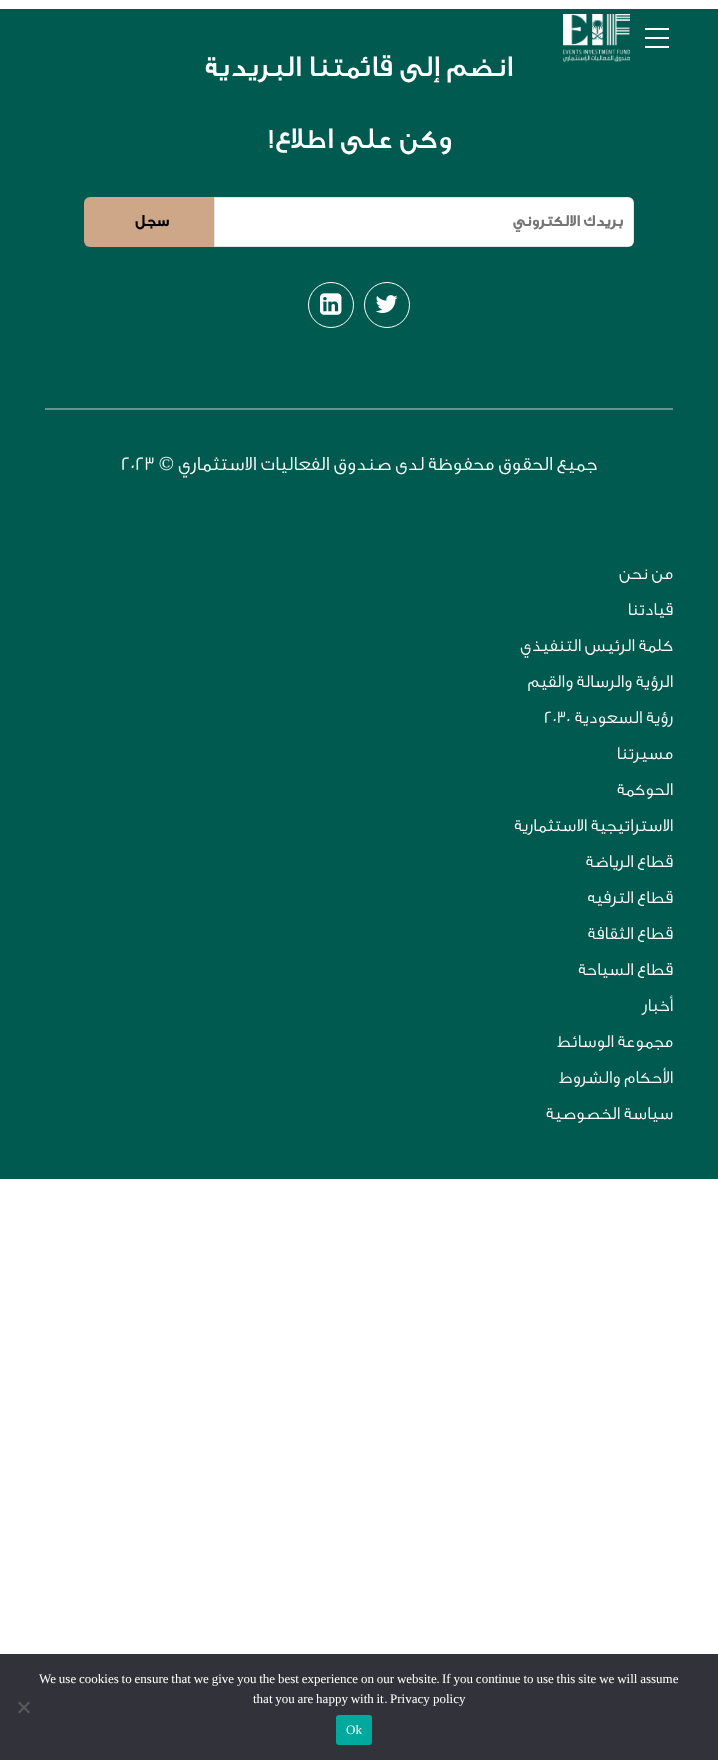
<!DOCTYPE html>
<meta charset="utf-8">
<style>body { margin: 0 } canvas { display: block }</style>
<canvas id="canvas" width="718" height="1760"></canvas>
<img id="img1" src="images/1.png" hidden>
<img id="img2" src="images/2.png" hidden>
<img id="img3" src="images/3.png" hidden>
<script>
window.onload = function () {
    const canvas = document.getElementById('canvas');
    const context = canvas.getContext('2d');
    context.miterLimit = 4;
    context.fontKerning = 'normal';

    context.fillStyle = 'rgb(255, 255, 255)';
    context.fillRect(0, 0, 718, 1760);
    context.fillStyle = 'rgb(1, 90, 79)';
    context.fillRect(0, 9, 718, 1170);
    context.fillStyle = 'rgb(255, 255, 255)';
    context.fillRect(645, 28, 24, 2);
    context.fillRect(645, 37, 24, 2);
    context.fillRect(645, 46, 24, 2);
    context.drawImage(document.getElementById('img1'), 563, 14, 67, 48);
    context.beginPath();
    context.roundRect(214, 197, 420, 50, [0, 6, 6, 0]);
    context.fill();
    context.beginPath();
    context.roundRect(214.5, 197.5, 419, 49, [0, 5.5, 5.5, 0]);
    context.strokeStyle = 'rgba(0, 0, 0, 0.1)';
    context.stroke();
    context.fillStyle = 'rgb(205, 167, 135)';
    context.beginPath();
    context.roundRect(84, 197, 130, 50, [6, 0, 0, 6]);
    context.fill();
    context.beginPath();
    context.arc(387, 305, 22.5, 0, 2 * Math.PI);
    context.strokeStyle = 'rgb(255, 255, 255)';
    context.stroke();
    context.drawImage(document.getElementById('img2'), 375, 295, 23, 18);
    context.beginPath();
    context.arc(331, 305, 22.5, 0, 2 * Math.PI);
    context.stroke();
    context.drawImage(document.getElementById('img3'), 320, 293, 22, 22);
    context.fillStyle = 'rgb(103, 147, 142)';
    context.fillRect(45, 408, 628, 2);
    context.fillStyle = 'rgb(50, 50, 58)';
    context.fillRect(0, 1654, 718, 106);
    context.fillStyle = 'rgb(89, 89, 93)';
    context.beginPath();
    context.moveTo(28.5, 1701.5);
    context.lineTo(30, 1703);
    context.lineTo(19.5, 1713.5);
    context.lineTo(18, 1712);
    context.closePath();
    context.fill();
    context.beginPath();
    context.moveTo(18, 1703);
    context.lineTo(19.5, 1701.5);
    context.lineTo(30, 1712);
    context.lineTo(28.5, 1713.5);
    context.closePath();
    context.fill();
    context.fillStyle = 'rgb(0, 169, 157)';
    context.beginPath();
    context.roundRect(336, 1715, 36, 30, 3);
    context.fill();
    context.direction = 'rtl';
    context.font = '500 30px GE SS';
    context.fillStyle = 'rgb(255, 255, 255)';
    context.fillText('انضم إلى قائمتنا البريدية', 513, 76);
    context.fillText('وكن على اطلاع!', 452, 148);
    context.save();
    context.beginPath();
    context.rect(225, 212, 398, 20);
    context.clip();
    context.font = 'bold 16px GE SS';
    context.fillStyle = 'rgb(117, 117, 117)';
    context.fillText('بريدك الالكتروني', 623, 226);
    context.restore();
    context.letterSpacing = '1px';
    context.font = 'bold 16px GE SS';
    context.fillStyle = 'rgb(0, 0, 0)';
    context.fillText('سجل', 169, 226);
    context.letterSpacing = '0px';
    context.font = '300 20px GE SS';
    context.fillStyle = 'rgb(255, 255, 255)';
    context.fillText('جميع الحقوق محفوظة لدى صندوق الفعاليات الاستثماري', 597, 470);
    context.font = '20px Liberation Serif';
    context.fillText('©', 174, 470);
    context.direction = 'ltr';
    context.font = '300 20px GE SS';
    context.fillText('2023', 121, 470);
    context.direction = 'rtl';
    context.font = '300 18px GE SS';
    context.fillText('من نحن', 673, 579);
    context.fillText('قيادتنا', 673, 615);
    context.fillText('كلمة الرئيس التنفيذي', 673, 651);
    context.fillText('الرؤية والرسالة والقيم', 673, 687);
    context.fillText('رؤية السعودية', 673, 723);
    context.direction = 'ltr';
    context.fillText('2030', 544, 723);
    context.direction = 'rtl';
    context.fillText('مسيرتنا', 673, 759);
    context.fillText('الحوكمة', 673, 795);
    context.fillText('الاستراتيجية الاستثمارية', 673, 831);
    context.fillText('قطاع الرياضة', 673, 867);
    context.fillText('قطاع الترفيه', 673, 903);
    context.fillText('قطاع الثقافة', 673, 939);
    context.fillText('قطاع السياحة', 673, 975);
    context.fillText('أخبار', 673, 1011);
    context.fillText('مجموعة الوسائط', 673, 1047);
    context.fillText('الأحكام والشروط', 673, 1083);
    context.fillText('سياسة الخصوصية', 673, 1119);
    context.wordSpacing = '-0.4px';
    context.direction = 'ltr';
    context.font = '13px Liberation Serif';
    context.fillText('If you continue to use this site we will assume', 442, 1683);
    context.wordSpacing = '0px';
    context.font = '500 13px GE SS';
    context.fillText('.', 437, 1683);
    context.wordSpacing = '-0.4px';
    context.font = '13px Liberation Serif';
    context.fillText('We use cookies to ensure that we give you the best experience on our website', 39, 1683);
    context.wordSpacing = '0px';
    context.fillText('Privacy policy', 390, 1703);
    context.font = '500 13px GE SS';
    context.fillText('.', 385, 1703);
    context.wordSpacing = '-0.5px';
    context.font = '13px Liberation Serif';
    context.fillText('that you are happy with it', 253, 1703);
    context.wordSpacing = '0px';
    context.fillText('Ok', 346, 1734);
};
</script>
